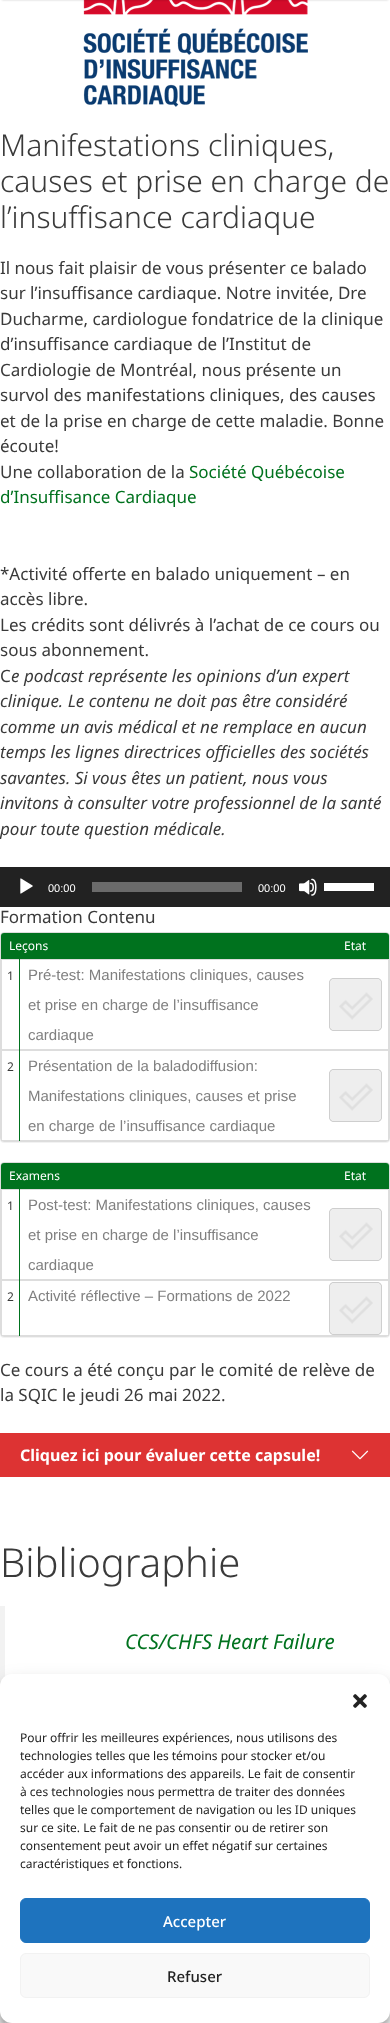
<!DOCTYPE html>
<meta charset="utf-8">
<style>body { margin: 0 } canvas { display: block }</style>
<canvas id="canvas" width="390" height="2023"></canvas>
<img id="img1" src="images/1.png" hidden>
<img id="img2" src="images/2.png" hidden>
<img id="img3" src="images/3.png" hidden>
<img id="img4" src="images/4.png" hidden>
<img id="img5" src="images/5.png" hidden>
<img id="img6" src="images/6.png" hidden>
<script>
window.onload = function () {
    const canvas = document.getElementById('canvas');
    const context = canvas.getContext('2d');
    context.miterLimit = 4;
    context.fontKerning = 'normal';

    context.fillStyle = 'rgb(255, 255, 255)';
    context.fillRect(0, 0, 390, 2023);
    context.drawImage(document.getElementById('img1'), 83, 0, 225, 107);
    context.fillStyle = 'rgba(0, 0, 0, 0.2)';
    context.filter = 'blur(1px)';
    context.beginPath();
    context.rect(2, -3, 386, 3);
    context.fill();
    context.filter = 'none';
    context.fillStyle = 'rgb(34, 34, 34)';
    context.fillRect(0, 867, 390, 40);
    context.drawImage(document.getElementById('img2'), 20, 878, 13, 16);
    context.fillStyle = 'rgb(107, 107, 107)';
    context.fillRect(92, 882, 150, 10);
    context.drawImage(document.getElementById('img3'), 299, 878, 18, 18);
    context.fillStyle = 'rgb(255, 255, 255)';
    context.fillRect(324, 883, 50, 8);
    context.fillStyle = 'rgba(0, 0, 0, 0.05)';
    context.filter = 'blur(0.5px)';
    context.beginPath();
    context.roundRect(0, 933, 390, 210, 4);
    context.fill();
    context.filter = 'none';
    context.fillStyle = 'rgb(255, 255, 255)';
    context.beginPath();
    context.roundRect(0.5, 932.5, 389, 209, 3.5);
    context.fill();
    context.strokeStyle = 'rgb(221, 221, 221)';
    context.stroke();
    context.fillStyle = 'rgb(0, 114, 30)';
    context.beginPath();
    context.roundRect(1, 933, 388, 26, [3, 3, 0, 0]);
    context.fill();
    context.strokeRect(1.5, 959.5, 387, 90);
    context.fillRect(19, 959, 1, 91);
    context.drawImage(document.getElementById('img4'), 329, 978, 53, 53);
    context.strokeRect(1.5, 1050.5, 387, 90);
    context.fillRect(19, 1050, 1, 91);
    context.drawImage(document.getElementById('img4'), 329, 1069, 53, 53);
    context.fillStyle = 'rgba(0, 0, 0, 0.05)';
    context.filter = 'blur(0.5px)';
    context.beginPath();
    context.roundRect(0, 1163, 390, 175, 4);
    context.fill();
    context.filter = 'none';
    context.fillStyle = 'rgb(255, 255, 255)';
    context.beginPath();
    context.roundRect(0.5, 1162.5, 389, 174, 3.5);
    context.fill();
    context.stroke();
    context.fillStyle = 'rgb(0, 114, 30)';
    context.beginPath();
    context.roundRect(1, 1163, 388, 26, [3, 3, 0, 0]);
    context.fill();
    context.strokeRect(1.5, 1189.5, 387, 90);
    context.fillRect(19, 1189, 1, 91);
    context.drawImage(document.getElementById('img4'), 329, 1208, 53, 53);
    context.strokeRect(1.5, 1280.5, 387, 55);
    context.fillRect(19, 1280, 1, 56);
    context.drawImage(document.getElementById('img4'), 329, 1282, 53, 53);
    context.fillStyle = 'rgb(221, 51, 51)';
    context.fillRect(0, 1433, 390, 44);
    context.drawImage(document.getElementById('img5'), 351, 1450, 18, 10);
    context.fillStyle = 'rgb(242, 242, 242)';
    context.fillRect(0, 1606, 5, 417);
    context.fillStyle = 'rgba(0, 0, 0, 0.23)';
    context.filter = 'blur(3px)';
    context.beginPath();
    context.roundRect(0, 1680, 390, 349, 12);
    context.fill();
    context.filter = 'none';
    context.fillStyle = 'rgba(0, 0, 0, 0.19)';
    context.filter = 'blur(10px)';
    context.beginPath();
    context.roundRect(0, 1684, 390, 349, 12);
    context.fill();
    context.filter = 'none';
    context.fillStyle = 'rgb(255, 255, 255)';
    context.beginPath();
    context.roundRect(0, 1674, 390, 349, 12);
    context.fill();
    context.drawImage(document.getElementById('img6'), 353, 1694, 14, 14);
    context.fillStyle = 'rgb(30, 115, 190)';
    context.beginPath();
    context.roundRect(20.5, 1898.5, 349, 44, 5.5);
    context.fill();
    context.strokeStyle = 'rgb(30, 115, 190)';
    context.stroke();
    context.fillStyle = 'rgb(249, 249, 249)';
    context.beginPath();
    context.roundRect(20.5, 1953.5, 349, 44, 5.5);
    context.fill();
    context.strokeStyle = 'rgb(242, 242, 242)';
    context.stroke();
    context.font = '300 30px Noto Sans';
    context.fillStyle = 'rgb(58, 58, 58)';
    context.fillText('Manifestations cliniques,', 0, 156);
    context.fillText('causes et prise en charge de', 0, 192);
    context.fillText('l’insuffisance cardiaque', 0, 228);
    context.font = '17px Noto Sans';
    context.fillText('Il nous fait plaisir de vous présenter ce balado', 0, 274);
    context.fillText('sur l’insuffisance cardiaque. Notre invitée, Dre', 0, 299);
    context.fillText('Ducharme, cardiologue fondatrice de la clinique', 0, 325);
    context.fillText('d’insuffisance cardiaque de l’Institut de', 0, 350);
    context.fillText('Cardiologie de Montréal, nous présente un', 0, 376);
    context.fillText('survol des manifestations cliniques, des causes', 0, 401);
    context.fillText('et de la prise en charge de cette maladie. Bonne', 0, 427);
    context.fillText('écoute!', 0, 452);
    context.fillText('Une collaboration de la', 0, 478);
    context.fillStyle = 'rgb(0, 114, 30)';
    context.fillText('Société Québécoise', 189, 478);
    context.fillText('d’Insuffisance Cardiaque', 0, 503);
    context.fillStyle = 'rgb(58, 58, 58)';
    context.fillText('*Activité offerte en balado uniquement – en', 0, 580);
    context.fillText('accès libre.', 0, 605);
    context.fillText('Les crédits sont délivrés à l’achat de ce cours ou', 0, 631);
    context.fillText('sous abonnement.', 0, 656);
    context.fillText('C', 0, 682);
    context.font = 'italic 17px Noto Sans';
    context.fillText('e podcast représente les opinions d’un expert', 11, 682);
    context.fillText('clinique. Le contenu ne doit pas être considéré', 0, 707);
    context.fillText('comme un avis médical et ne remplace en aucun', 0, 733);
    context.fillText('temps les lignes directrices officielles des sociétés', 0, 758);
    context.fillText('savantes. Si vous êtes un patient, nous vous', 0, 784);
    context.fillText('invitons à consulter votre professionnel de la santé', 0, 809);
    context.fillText('pour toute question médicale.', 0, 835);
    context.font = '11px Liberation Sans';
    context.fillStyle = 'rgb(255, 255, 255)';
    context.fillText('00:00', 48, 892);
    context.fillText('00:00', 258, 892);
    context.font = '17px Noto Sans';
    context.fillStyle = 'rgb(58, 58, 58)';
    context.fillText('Formation Contenu', 0, 923);
    context.font = '12px Noto Sans';
    context.fillStyle = 'rgb(255, 255, 255)';
    context.fillText('Leçons', 9, 950);
    context.fillText('Etat', 344, 950);
    context.fillStyle = 'rgb(58, 58, 58)';
    context.fillText('1', 7, 980);
    context.font = '15px Liberation Sans';
    context.fillStyle = 'rgb(128, 128, 128)';
    context.fillText('Pré-test: Manifestations cliniques, causes', 28, 980);
    context.fillText('et prise en charge de l’insuffisance', 28, 1010);
    context.fillText('cardiaque', 28, 1040);
    context.font = '12px Noto Sans';
    context.fillStyle = 'rgb(58, 58, 58)';
    context.fillText('2', 7, 1071);
    context.font = '15px Liberation Sans';
    context.fillStyle = 'rgb(128, 128, 128)';
    context.fillText('Présentation de la baladodiffusion:', 28, 1071);
    context.fillText('Manifestations cliniques, causes et prise', 28, 1101);
    context.fillText('en charge de l’insuffisance cardiaque', 28, 1131);
    context.font = '12px Noto Sans';
    context.fillStyle = 'rgb(255, 255, 255)';
    context.fillText('Examens', 9, 1180);
    context.fillText('Etat', 344, 1180);
    context.fillStyle = 'rgb(58, 58, 58)';
    context.fillText('1', 7, 1210);
    context.font = '15px Liberation Sans';
    context.fillStyle = 'rgb(128, 128, 128)';
    context.fillText('Post-test: Manifestations cliniques, causes', 28, 1210);
    context.fillText('et prise en charge de l’insuffisance', 28, 1240);
    context.fillText('cardiaque', 28, 1270);
    context.font = '12px Noto Sans';
    context.fillStyle = 'rgb(58, 58, 58)';
    context.fillText('2', 7, 1301);
    context.font = '15px Liberation Sans';
    context.fillStyle = 'rgb(128, 128, 128)';
    context.fillText('Activité réflective – Formations de 2022', 28, 1301);
    context.font = '17px Noto Sans';
    context.fillStyle = 'rgb(58, 58, 58)';
    context.fillText('Ce cours a été conçu par le comité de relève de', 0, 1376);
    context.fillText('la SQIC le jeudi 26 mai 2022.', 0, 1401);
    context.font = 'bold 16px Noto Sans';
    context.fillStyle = 'rgb(255, 255, 255)';
    context.fillText('Cliquez ici pour évaluer cette capsule!', 20, 1461);
    context.font = '300 40px Noto Sans';
    context.fillStyle = 'rgb(58, 58, 58)';
    context.fillText('Bibliographie', 0, 1577);
    context.font = 'italic 20.4px Noto Sans';
    context.fillStyle = 'rgb(0, 114, 30)';
    context.fillText('CCS/CHFS Heart Failure', 125, 1649);
    context.font = '12px Noto Sans';
    context.fillStyle = 'rgb(34, 34, 34)';
    context.fillText('Pour offrir les meilleures expériences, nous utilisons des', 20, 1742);
    context.fillText('technologies telles que les témoins pour stocker et/ou', 20, 1760);
    context.fillText('accéder aux informations des appareils. Le fait de consentir', 20, 1778);
    context.fillText('à ces technologies nous permettra de traiter des données', 20, 1796);
    context.fillText('telles que le comportement de navigation ou les ID uniques', 20, 1814);
    context.fillText('sur ce site. Le fait de ne pas consentir ou de retirer son', 20, 1832);
    context.fillText('consentement peut avoir un effet négatif sur certaines', 20, 1850);
    context.fillText('caractéristiques et fonctions.', 20, 1868);
    context.font = '500 15px Noto Sans';
    context.fillStyle = 'rgb(255, 255, 255)';
    context.fillText('Accepter', 163, 1927);
    context.fillStyle = 'rgb(34, 34, 34)';
    context.fillText('Refuser', 167, 1982);
};
</script>
